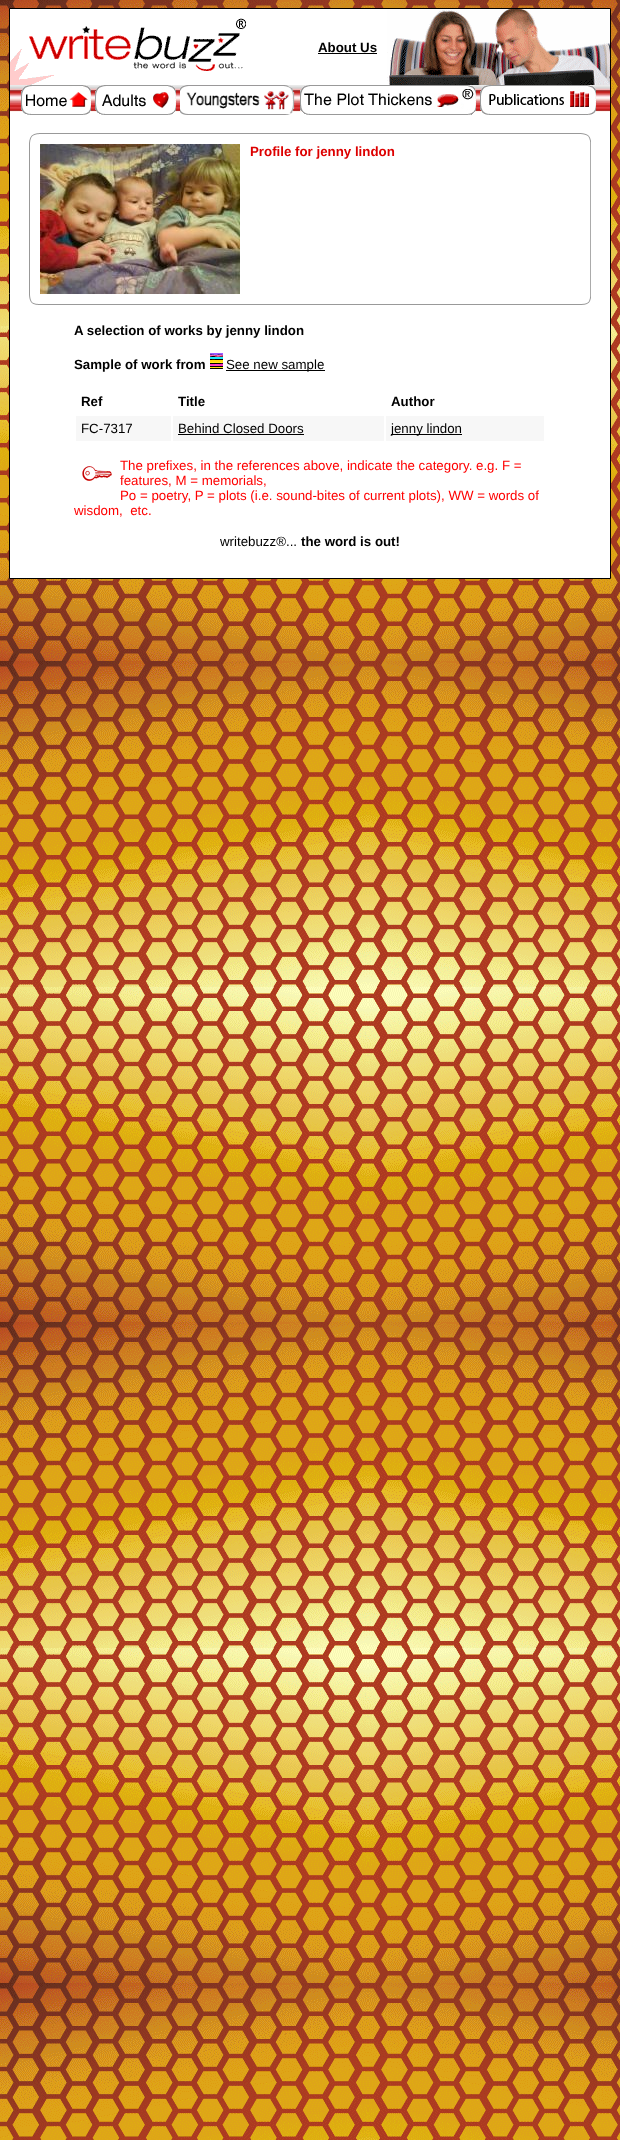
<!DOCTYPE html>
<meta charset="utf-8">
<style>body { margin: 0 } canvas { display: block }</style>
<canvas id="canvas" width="620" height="2140"></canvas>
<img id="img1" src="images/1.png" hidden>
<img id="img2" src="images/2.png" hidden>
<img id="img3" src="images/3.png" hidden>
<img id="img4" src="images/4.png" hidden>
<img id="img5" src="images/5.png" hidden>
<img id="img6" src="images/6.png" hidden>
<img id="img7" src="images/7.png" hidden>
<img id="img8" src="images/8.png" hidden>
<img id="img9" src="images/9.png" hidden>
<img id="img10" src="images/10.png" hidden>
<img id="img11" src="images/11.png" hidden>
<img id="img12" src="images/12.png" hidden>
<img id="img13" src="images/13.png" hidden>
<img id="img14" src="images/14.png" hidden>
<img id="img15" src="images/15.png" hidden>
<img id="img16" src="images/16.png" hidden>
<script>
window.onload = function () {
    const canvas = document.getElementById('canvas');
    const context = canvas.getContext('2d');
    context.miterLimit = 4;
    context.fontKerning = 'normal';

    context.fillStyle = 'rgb(255, 255, 255)';
    context.fillRect(0, 0, 620, 2140);
    context.drawImage(document.getElementById('img1'), 0, 0, 620, 2140);
    context.beginPath();
    context.rect(9.5, 8.5, 601, 570);
    context.fill();
    context.strokeStyle = 'rgb(0, 0, 0)';
    context.stroke();
    context.drawImage(document.getElementById('img2'), 10, 85, 600, 27);
    context.drawImage(document.getElementById('img3'), 10, 18, 236, 67);
    context.fillStyle = 'rgb(0, 0, 0)';
    context.fillRect(318, 53, 59, 1);
    context.drawImage(document.getElementById('img4'), 387, 9, 223, 76);
    context.drawImage(document.getElementById('img5'), 21, 85, 70, 30);
    context.drawImage(document.getElementById('img6'), 95, 85, 81, 30);
    context.drawImage(document.getElementById('img7'), 180, 85, 115, 30);
    context.drawImage(document.getElementById('img8'), 300, 85, 176, 30);
    context.drawImage(document.getElementById('img9'), 480, 85, 116, 30);
    context.drawImage(document.getElementById('img10'), 29, 133, 11, 11);
    context.fillStyle = 'rgb(153, 153, 153)';
    context.fillRect(40, 133, 541, 1);
    context.drawImage(document.getElementById('img11'), 581, 133, 10, 11);
    context.fillRect(29, 144, 1, 150);
    context.drawImage(document.getElementById('img12'), 40, 144, 200, 150);
    context.fillStyle = 'rgb(171, 171, 171)';
    context.fillRect(590, 144, 1, 150);
    context.drawImage(document.getElementById('img13'), 29, 294, 11, 11);
    context.fillStyle = 'rgb(153, 153, 153)';
    context.fillRect(40, 304, 541, 1);
    context.drawImage(document.getElementById('img14'), 581, 294, 10, 11);
    context.drawImage(document.getElementById('img15'), 210, 353, 13, 16);
    context.fillStyle = 'rgb(0, 0, 0)';
    context.fillRect(226, 370, 99, 1);
    context.fillStyle = 'rgb(247, 247, 247)';
    context.fillRect(76, 416, 95, 25);
    context.fillRect(173, 416, 211, 25);
    context.fillStyle = 'rgb(0, 0, 0)';
    context.fillRect(178, 434, 126, 1);
    context.fillStyle = 'rgb(247, 247, 247)';
    context.fillRect(386, 416, 158, 25);
    context.fillStyle = 'rgb(0, 0, 0)';
    context.fillRect(391, 434, 71, 1);
    context.drawImage(document.getElementById('img16'), 82, 466, 30, 15);
    context.font = 'bold 13.3px Liberation Sans';
    context.fillText('About Us', 318, 52);
    context.fillStyle = 'rgb(221, 0, 0)';
    context.fillText('Profile for jenny lindon', 250, 156);
    context.fillStyle = 'rgb(0, 0, 0)';
    context.fillText('A selection of works by jenny lindon', 74, 335);
    context.fillText('Sample of work from', 74, 369);
    context.font = '13.3px Liberation Sans';
    context.fillText('See new sample', 226, 369);
    context.font = 'bold 13.3px Liberation Sans';
    context.fillText('Ref', 81, 406);
    context.fillText('Title', 178, 406);
    context.fillText('Author', 391, 406);
    context.font = '13.3px Liberation Sans';
    context.fillText('FC-7317', 81, 433);
    context.fillText('Behind Closed Doors', 178, 433);
    context.fillText('jenny lindon', 391, 433);
    context.fillStyle = 'rgb(255, 0, 0)';
    context.fillText('The prefixes, in the references above, indicate the category. e.g. F =', 120, 470);
    context.fillText('features, M = memorials,', 120, 485);
    context.fillText('Po = poetry, P = plots (i.e. sound-bites of current plots), WW = words of', 120, 500);
    context.fillText('wisdom,  etc.', 74, 515);
    context.fillStyle = 'rgb(0, 0, 0)';
    context.fillText('writebuzz®...', 220, 546);
    context.font = 'bold 13.3px Liberation Sans';
    context.fillText('the word is out!', 301, 546);
};
</script>
